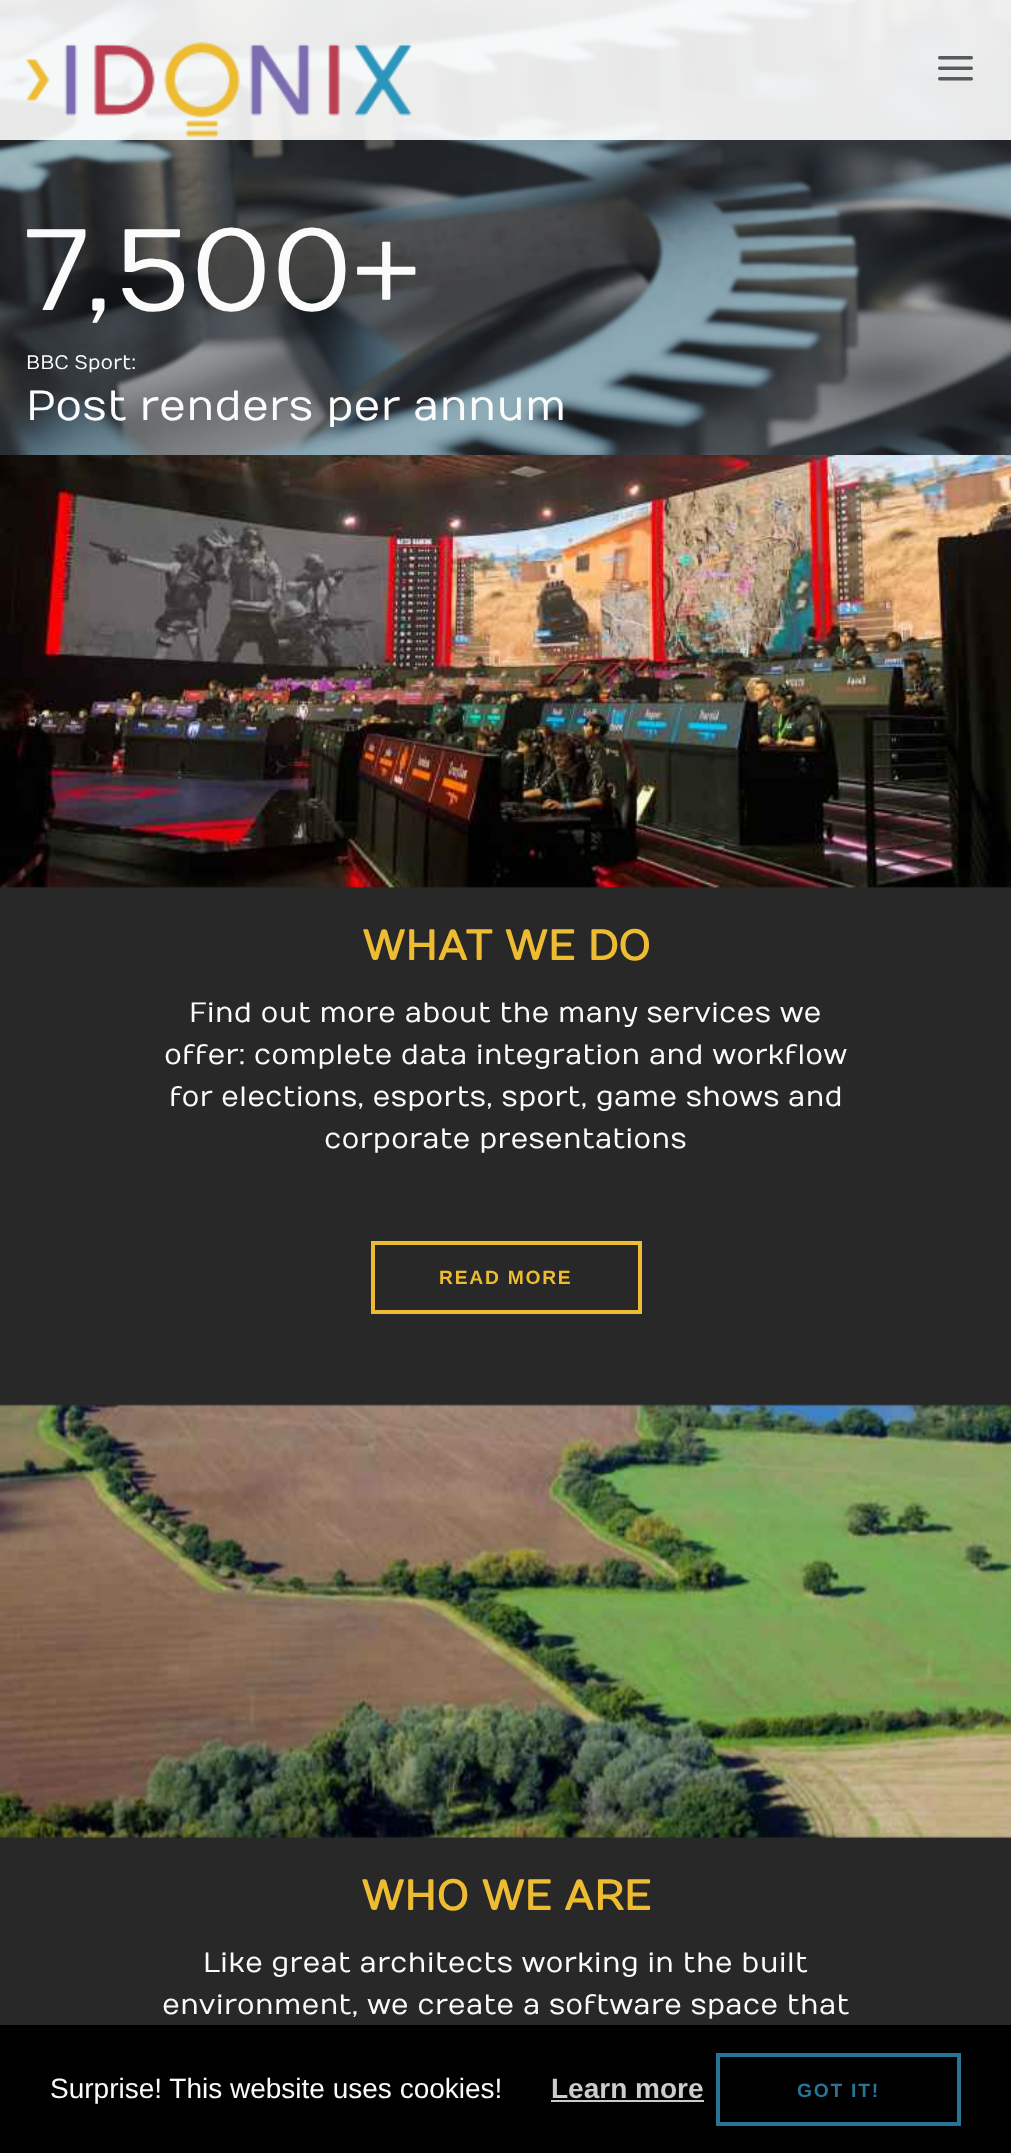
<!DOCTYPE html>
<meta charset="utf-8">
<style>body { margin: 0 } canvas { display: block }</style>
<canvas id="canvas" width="1011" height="2153"></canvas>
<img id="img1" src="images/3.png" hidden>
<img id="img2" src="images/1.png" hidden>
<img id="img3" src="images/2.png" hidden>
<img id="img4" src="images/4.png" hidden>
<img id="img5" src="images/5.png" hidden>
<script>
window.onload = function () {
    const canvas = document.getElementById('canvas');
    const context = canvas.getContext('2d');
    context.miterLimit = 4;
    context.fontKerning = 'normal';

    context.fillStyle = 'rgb(40, 40, 40)';
    context.fillRect(0, 0, 1011, 2153);
    context.drawImage(document.getElementById('img1'), 0, 0, 1011, 455);
    context.fillStyle = 'rgba(255, 255, 255, 0.9)';
    context.fillRect(0, 0, 1011, 140);
    context.drawImage(document.getElementById('img2'), 26, 42, 386, 95);
    context.drawImage(document.getElementById('img3'), 938, 56, 35, 25);
    context.drawImage(document.getElementById('img4'), 0, 455, 1011, 433);
    context.strokeStyle = 'rgb(237, 188, 50)';
    context.lineWidth = 4;
    context.strokeRect(373, 1243, 267, 69);
    context.drawImage(document.getElementById('img5'), 0, 1404, 1011, 434);
    context.fillStyle = 'rgb(0, 0, 0)';
    context.fillRect(0, 2025, 1011, 128);
    context.fillStyle = 'rgb(204, 204, 204)';
    context.fillRect(551, 2100, 153, 2);
    context.strokeStyle = 'rgb(38, 116, 150)';
    context.strokeRect(718, 2055, 241, 69);
    context.font = '115.5px Numans';
    context.fillStyle = 'rgb(251, 251, 251)';
    context.fillText('7,500+', 26, 310);
    context.font = '19.5px Numans';
    context.fillText('BBC Sport:', 26, 369);
    context.font = '42px Numans';
    context.fillText('Post renders per annum', 26, 420);
    context.font = 'bold 42px Numans';
    context.fillStyle = 'rgb(237, 188, 50)';
    context.fillText('WHAT WE DO', 362, 960);
    context.font = '28px Numans';
    context.fillStyle = 'rgb(251, 251, 251)';
    context.fillText('Find out more about the many services we', 189, 1022);
    context.fillText('offer: complete data integration and workflow', 164, 1064);
    context.fillText('for elections, esports, sport, game shows and', 169, 1106);
    context.fillText('corporate presentations', 324, 1148);
    context.letterSpacing = '1.75px';
    context.font = 'bold 19.25px Liberation Sans';
    context.fillStyle = 'rgb(237, 188, 50)';
    context.fillText('READ MORE', 439, 1284);
    context.letterSpacing = '0px';
    context.font = 'bold 42px Numans';
    context.fillText('WHO WE ARE', 361, 1910);
    context.font = '28px Numans';
    context.fillStyle = 'rgb(251, 251, 251)';
    context.fillText('Like great architects working in the built', 203, 1972);
    context.fillText('environment, we create a software space that', 162, 2014);
    context.font = '28px Liberation Sans';
    context.fillText('Surprise! This website uses cookies!', 50, 2098);
    context.font = 'bold 28px Liberation Sans';
    context.fillStyle = 'rgb(204, 204, 204)';
    context.fillText('Learn more', 551, 2098);
    context.letterSpacing = '1.75px';
    context.font = 'bold 19.25px Liberation Sans';
    context.fillStyle = 'rgb(38, 116, 150)';
    context.fillText('GOT IT!', 797, 2097);
};
</script>
